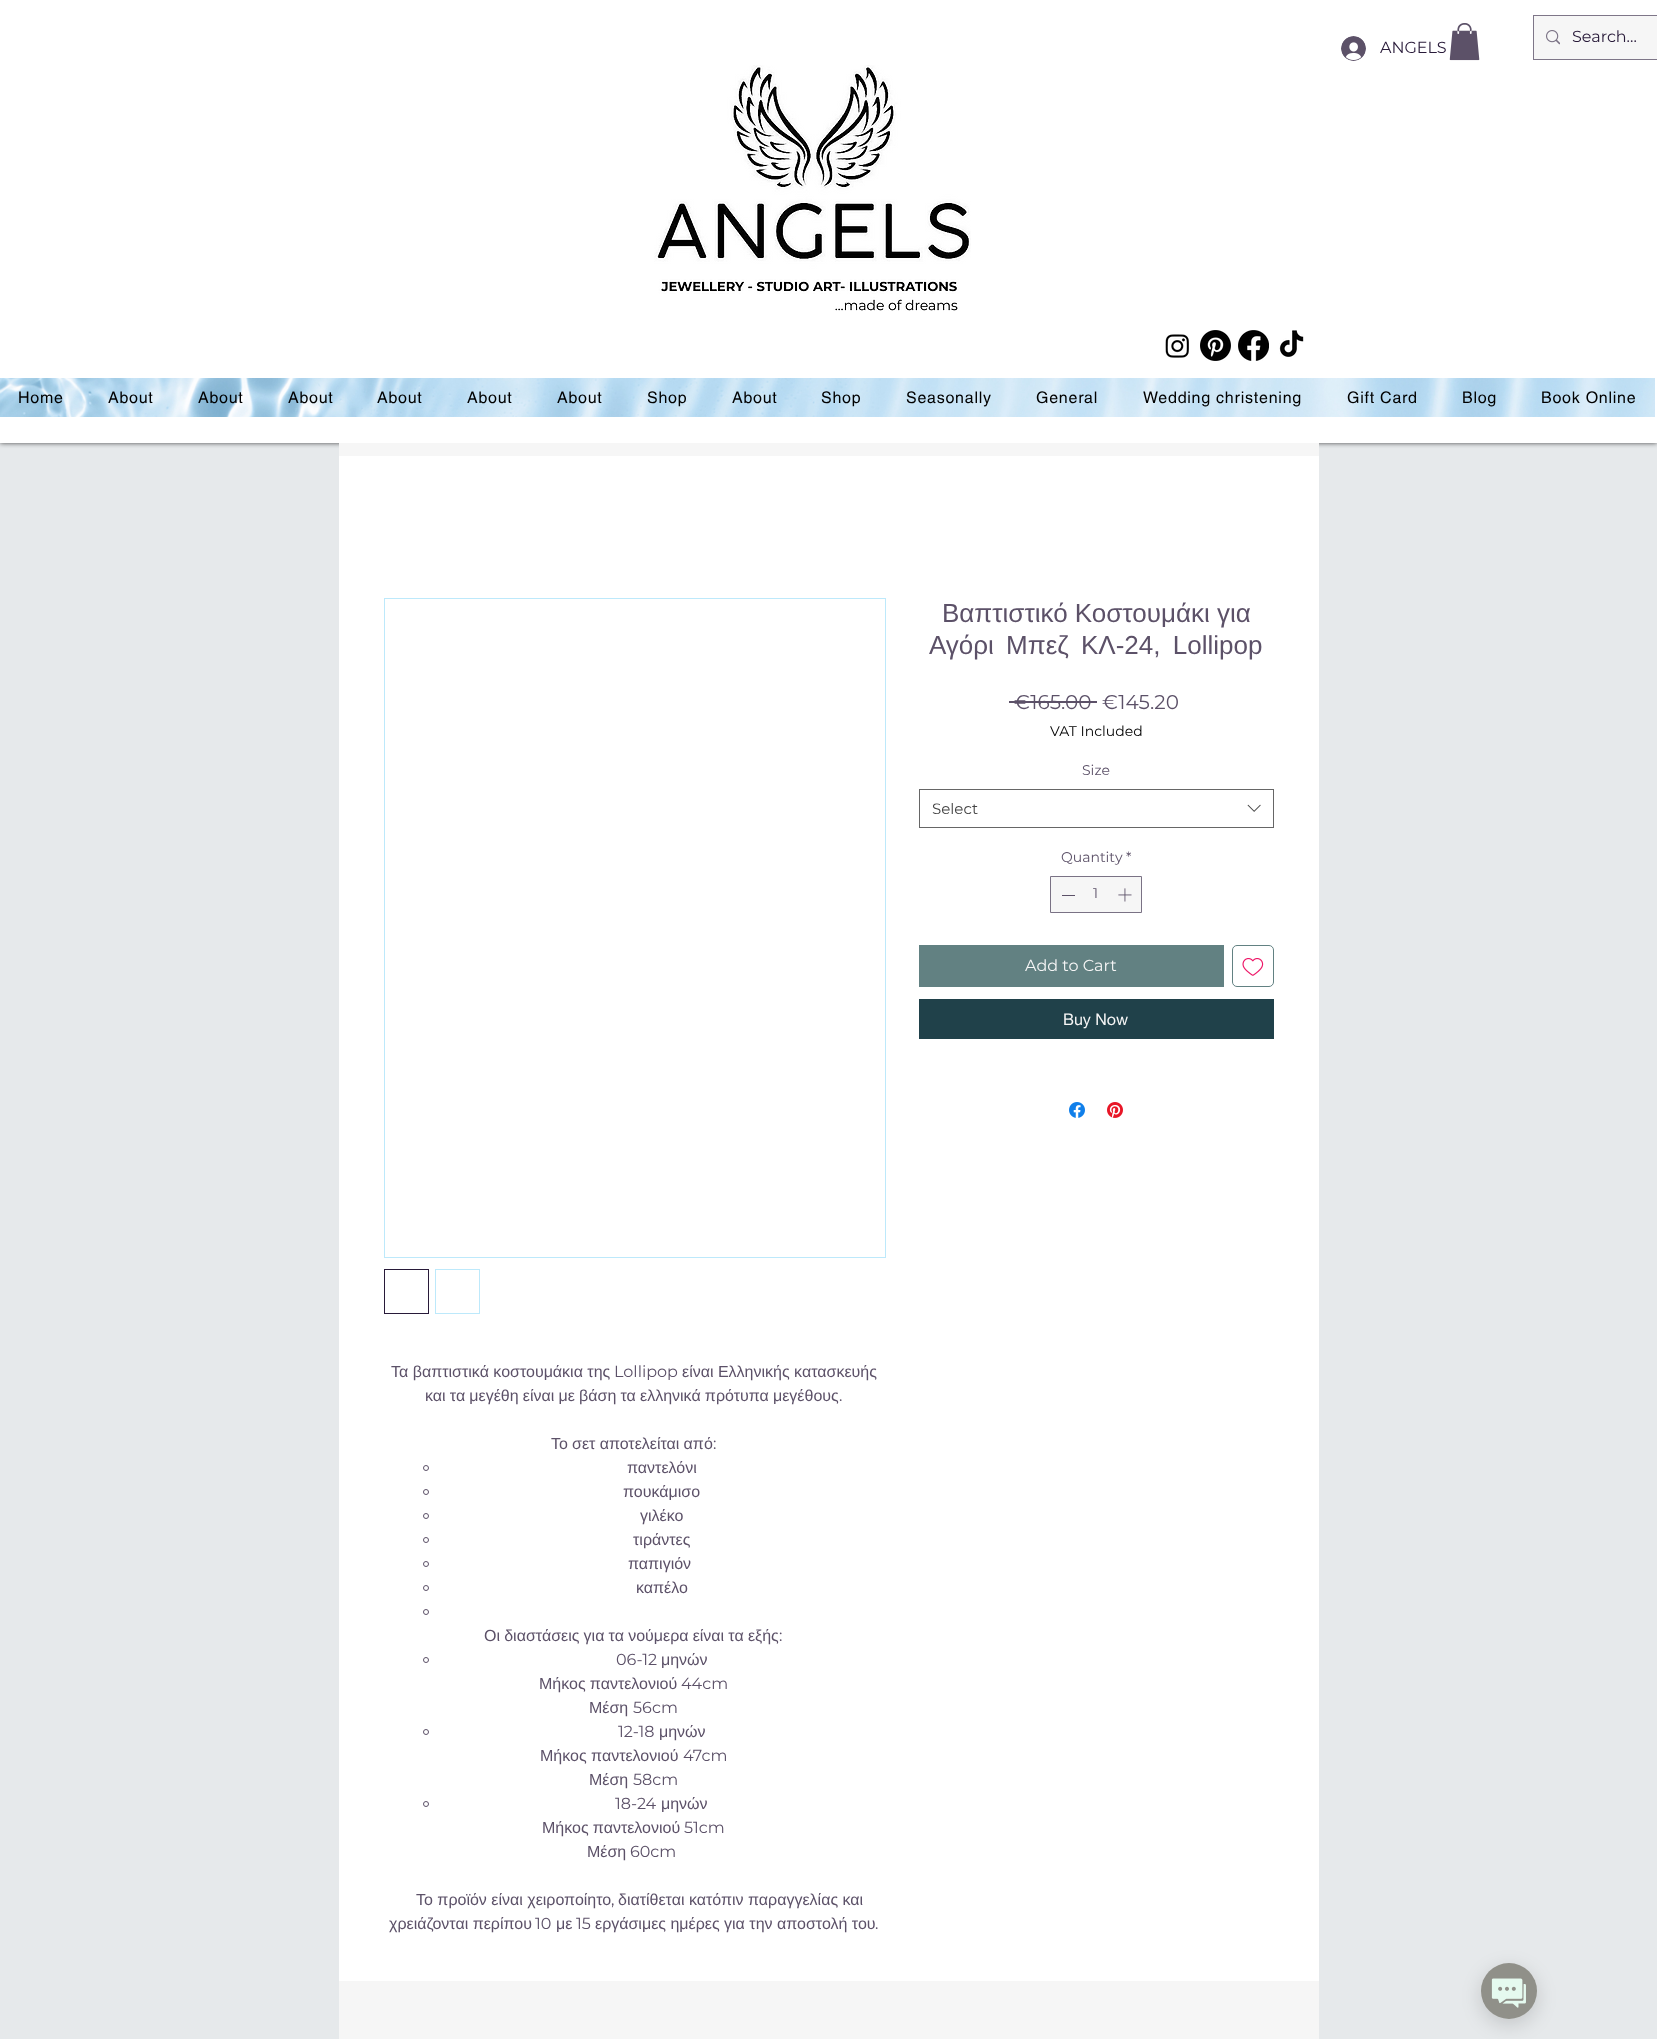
<!DOCTYPE html>
<meta charset="utf-8">
<style>body { margin: 0 } canvas { display: block }</style>
<canvas id="canvas" width="1657" height="2039"></canvas>
<img id="img1" src="images/1.png" hidden>
<img id="img2" src="images/2.png" hidden>
<img id="img3" src="images/3.png" hidden>
<img id="img4" src="images/4.png" hidden>
<img id="img5" src="images/5.png" hidden>
<img id="img6" src="images/6.png" hidden>
<img id="img7" src="images/7.png" hidden>
<img id="img8" src="images/8.png" hidden>
<img id="img9" src="images/9.png" hidden>
<img id="img10" src="images/10.png" hidden>
<img id="img11" src="images/11.png" hidden>
<img id="img12" src="images/12.png" hidden>
<img id="img13" src="images/13.png" hidden>
<img id="img14" src="images/14.png" hidden>
<img id="img15" src="images/15.png" hidden>
<script>
window.onload = function () {
    const canvas = document.getElementById('canvas');
    const context = canvas.getContext('2d');
    context.miterLimit = 4;
    context.fontKerning = 'normal';

    context.fillStyle = 'rgb(230, 233, 235)';
    context.fillRect(0, 0, 1657, 2039);
    context.fillStyle = 'rgba(0, 0, 0, 0.7)';
    context.filter = 'blur(2.5px)';
    context.beginPath();
    context.rect(0, -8, 1657, 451);
    context.fill();
    context.filter = 'none';
    context.fillStyle = 'rgb(255, 255, 255)';
    context.fillRect(0, 0, 1657, 443);
    context.drawImage(document.getElementById('img1'), 1449, 23, 31, 38);
    context.strokeStyle = 'rgb(126, 118, 136)';
    context.strokeRect(1533.5, 15.5, 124, 44);
    context.fillStyle = 'rgb(246, 246, 246)';
    context.fillRect(1534, 16, 123, 43);
    context.drawImage(document.getElementById('img2'), 1546, 30, 14, 15);
    context.drawImage(document.getElementById('img3'), 1341, 36, 25, 25);
    context.drawImage(document.getElementById('img4'), 654, 65, 317, 246);
    context.drawImage(document.getElementById('img5'), 1165, 334, 24, 24);
    context.drawImage(document.getElementById('img6'), 1200, 330, 31, 31);
    context.drawImage(document.getElementById('img7'), 1238, 330, 31, 31);
    context.drawImage(document.getElementById('img8'), 1279, 330, 25, 27);
    context.drawImage(document.getElementById('img9'), 0, 378, 1655, 39);
    context.fillRect(339, 443, 980, 1596);
    context.fillStyle = 'rgb(255, 255, 255)';
    context.fillRect(339, 456, 980, 1525);
    context.fillStyle = 'rgb(92, 81, 104)';
    context.fillRect(1009, 701, 88, 2);
    context.strokeStyle = 'rgb(102, 102, 102)';
    context.strokeRect(919.5, 789.5, 354, 38);
    context.drawImage(document.getElementById('img10'), 1247, 804, 14, 8);
    context.fillStyle = 'rgb(246, 246, 246)';
    context.beginPath();
    context.rect(1050.5, 876.5, 91, 36);
    context.fill();
    context.strokeStyle = 'rgb(122, 114, 133)';
    context.stroke();
    context.fillStyle = 'rgb(92, 81, 104)';
    context.fillRect(1062, 895, 13, 1);
    context.drawImage(document.getElementById('img11'), 1118, 888, 14, 14);
    context.fillStyle = 'rgb(98, 129, 130)';
    context.fillRect(919, 945, 305, 42);
    context.beginPath();
    context.roundRect(1232.5, 945.5, 41, 41, 4.5);
    context.strokeStyle = 'rgb(98, 129, 130)';
    context.stroke();
    context.drawImage(document.getElementById('img12'), 1242, 958, 22, 18);
    context.fillStyle = 'rgb(32, 65, 74)';
    context.fillRect(919, 999, 355, 40);
    context.drawImage(document.getElementById('img13'), 1069, 1102, 16, 16);
    context.drawImage(document.getElementById('img14'), 1107, 1102, 16, 16);
    context.strokeStyle = 'rgb(189, 233, 251)';
    context.strokeRect(384.5, 598.5, 501, 659);
    context.strokeStyle = 'rgb(40, 26, 57)';
    context.strokeRect(384.5, 1269.5, 44, 44);
    context.strokeStyle = 'rgb(189, 233, 251)';
    context.strokeRect(435.5, 1269.5, 44, 44);
    context.beginPath();
    context.arc(426, 1468, 2.5, 0, 2 * Math.PI);
    context.strokeStyle = 'rgb(92, 81, 104)';
    context.stroke();
    context.beginPath();
    context.arc(426, 1492, 2.5, 0, 2 * Math.PI);
    context.stroke();
    context.beginPath();
    context.arc(426, 1516, 2.5, 0, 2 * Math.PI);
    context.stroke();
    context.beginPath();
    context.arc(426, 1540, 2.5, 0, 2 * Math.PI);
    context.stroke();
    context.beginPath();
    context.arc(426, 1564, 2.5, 0, 2 * Math.PI);
    context.stroke();
    context.beginPath();
    context.arc(426, 1588, 2.5, 0, 2 * Math.PI);
    context.stroke();
    context.beginPath();
    context.arc(426, 1612, 2.5, 0, 2 * Math.PI);
    context.stroke();
    context.beginPath();
    context.arc(426, 1660, 2.5, 0, 2 * Math.PI);
    context.stroke();
    context.beginPath();
    context.arc(426, 1732, 2.5, 0, 2 * Math.PI);
    context.stroke();
    context.beginPath();
    context.arc(426, 1804, 2.5, 0, 2 * Math.PI);
    context.stroke();
    context.fillStyle = 'rgba(0, 0, 0, 0.15)';
    context.filter = 'blur(10px)';
    context.beginPath();
    context.roundRect(1481, 1969, 56, 56, 28);
    context.fill();
    context.filter = 'none';
    context.fillStyle = 'rgb(144, 144, 137)';
    context.beginPath();
    context.arc(1509, 1991, 28, 0, 2 * Math.PI);
    context.fill();
    context.drawImage(document.getElementById('img15'), 1491, 1978, 35, 30);
    context.font = '16px Montserrat';
    context.fillStyle = 'rgb(40, 26, 57)';
    context.fillText('Search...', 1572, 42);
    context.fillText('ANGELS', 1380, 53);
    context.letterSpacing = '0.75px';
    context.font = '16px helvetica';
    context.fillStyle = 'rgb(0, 0, 0)';
    context.fillText('Home', 18, 403);
    context.fillText('About', 108, 403);
    context.fillText('About', 198, 403);
    context.fillText('About', 288, 403);
    context.fillText('About', 377, 403);
    context.fillText('About', 467, 403);
    context.fillText('About', 557, 403);
    context.fillText('Shop', 647, 403);
    context.fillText('About', 732, 403);
    context.fillText('Shop', 821, 403);
    context.fillText('Seasonally', 906, 403);
    context.fillText('General', 1036, 403);
    context.fillText('Wedding christening', 1143, 403);
    context.fillText('Gift Card', 1347, 403);
    context.fillText('Blog', 1462, 403);
    context.fillText('Book Online', 1541, 403);
    context.letterSpacing = '0px';
    context.font = '26px Liberation Sans';
    context.fillStyle = 'rgb(92, 81, 104)';
    context.fillText('Βαπτιστικό Κοστουμάκι για', 942, 622);
    context.wordSpacing = '5px';
    context.fillText('Αγόρι Μπεζ ΚΛ-24, Lollipop', 929, 654);
    context.wordSpacing = '0px';
    context.font = '20px Montserrat';
    context.fillText('€165.00', 1014, 709);
    context.fillText('€145.20', 1102, 709);
    context.font = '14px Montserrat';
    context.fillStyle = 'rgb(0, 0, 0)';
    context.fillText('VAT Included', 1050, 736);
    context.fillStyle = 'rgb(92, 81, 104)';
    context.fillText('Size', 1082, 775);
    context.font = '15px Montserrat';
    context.fillStyle = 'rgb(68, 68, 68)';
    context.fillText('Select', 932, 814);
    context.font = '14px Montserrat';
    context.fillStyle = 'rgb(92, 81, 104)';
    context.fillText('Quantity', 1061, 862);
    context.fillText('*', 1126, 862);
    context.fillText('1', 1093, 898);
    context.font = '16px Montserrat';
    context.fillStyle = 'rgb(246, 246, 246)';
    context.fillText('Add to Cart', 1025, 971);
    context.font = '16px helvetica neue';
    context.fillText('Buy Now', 1063, 1025);
    context.font = '16px Liberation Sans';
    context.fillStyle = 'rgb(92, 81, 104)';
    context.fillText('Τα βαπτιστικά κοστουμάκια της', 391, 1377);
    context.font = '16px Montserrat';
    context.fillText('Lollipop', 614, 1377);
    context.font = '16px Liberation Sans';
    context.fillText('είναι Ελληνικής κατασκευής', 682, 1377);
    context.wordSpacing = '-0.25px';
    context.fillText('και τα μεγέθη είναι με βάση τα ελληνικά πρότυπα μεγέθους', 425, 1401);
    context.wordSpacing = '0px';
    context.font = '16px Montserrat';
    context.fillText('.', 839, 1401);
    context.wordSpacing = '-0.25px';
    context.font = '16px Liberation Sans';
    context.fillText('Το σετ αποτελείται από', 551, 1449);
    context.wordSpacing = '0px';
    context.font = '16px Montserrat';
    context.fillText(':', 713, 1449);
    context.font = '16px Liberation Sans';
    context.fillText('παντελόνι', 627, 1473);
    context.fillText('πουκάμισο', 623, 1497);
    context.fillText('γιλέκο', 640, 1521);
    context.fillText('τιράντες', 633, 1545);
    context.fillText('παπιγιόν', 628, 1569);
    context.fillText('καπέλο', 636, 1593);
    context.wordSpacing = '-0.25px';
    context.fillText('Οι διαστάσεις για τα νούμερα είναι τα εξής', 484, 1641);
    context.wordSpacing = '0px';
    context.font = '16px Montserrat';
    context.fillText(':', 779, 1641);
    context.fillText('06-12', 616, 1665);
    context.font = '16px Liberation Sans';
    context.fillText('μηνών', 661, 1665);
    context.wordSpacing = '-0.25px';
    context.fillText('Μήκος παντελονιού', 539, 1689);
    context.wordSpacing = '0px';
    context.font = '16px Montserrat';
    context.fillText('44cm', 681, 1689);
    context.font = '16px Liberation Sans';
    context.fillText('Μέση', 589, 1713);
    context.font = '16px Montserrat';
    context.fillText('56cm', 633, 1713);
    context.fillText('12-18', 618, 1737);
    context.font = '16px Liberation Sans';
    context.fillText('μηνών', 659, 1737);
    context.fillText('Μήκος παντελονιού', 540, 1761);
    context.font = '16px Montserrat';
    context.fillText('47cm', 683, 1761);
    context.font = '16px Liberation Sans';
    context.fillText('Μέση', 589, 1785);
    context.font = '16px Montserrat';
    context.fillText('58cm', 633, 1785);
    context.fillText('18-24', 615, 1809);
    context.font = '16px Liberation Sans';
    context.fillText('μηνών', 661, 1809);
    context.wordSpacing = '-0.25px';
    context.fillText('Μήκος παντελονιού', 542, 1833);
    context.wordSpacing = '0px';
    context.font = '16px Montserrat';
    context.fillText('51cm', 684, 1833);
    context.font = '16px Liberation Sans';
    context.fillText('Μέση', 587, 1857);
    context.font = '16px Montserrat';
    context.fillText('60cm', 630, 1857);
    context.font = '16px Liberation Sans';
    context.fillText('Το προϊόν είναι χειροποίητο', 416, 1905);
    context.font = '16px Montserrat';
    context.fillText(',', 611, 1905);
    context.font = '16px Liberation Sans';
    context.fillText('διατίθεται κατόπιν παραγγελίας και', 618, 1905);
    context.fillText('χρειάζονται περίπου', 389, 1929);
    context.font = '16px Montserrat';
    context.fillText('10', 535, 1929);
    context.font = '16px Liberation Sans';
    context.fillText('με', 556, 1929);
    context.font = '16px Montserrat';
    context.fillText('15', 576, 1929);
    context.font = '16px Liberation Sans';
    context.fillText('εργάσιμες ημέρες για την αποστολή του', 595, 1929);
    context.font = '16px Montserrat';
    context.fillText('.', 875, 1929);
};
</script>
